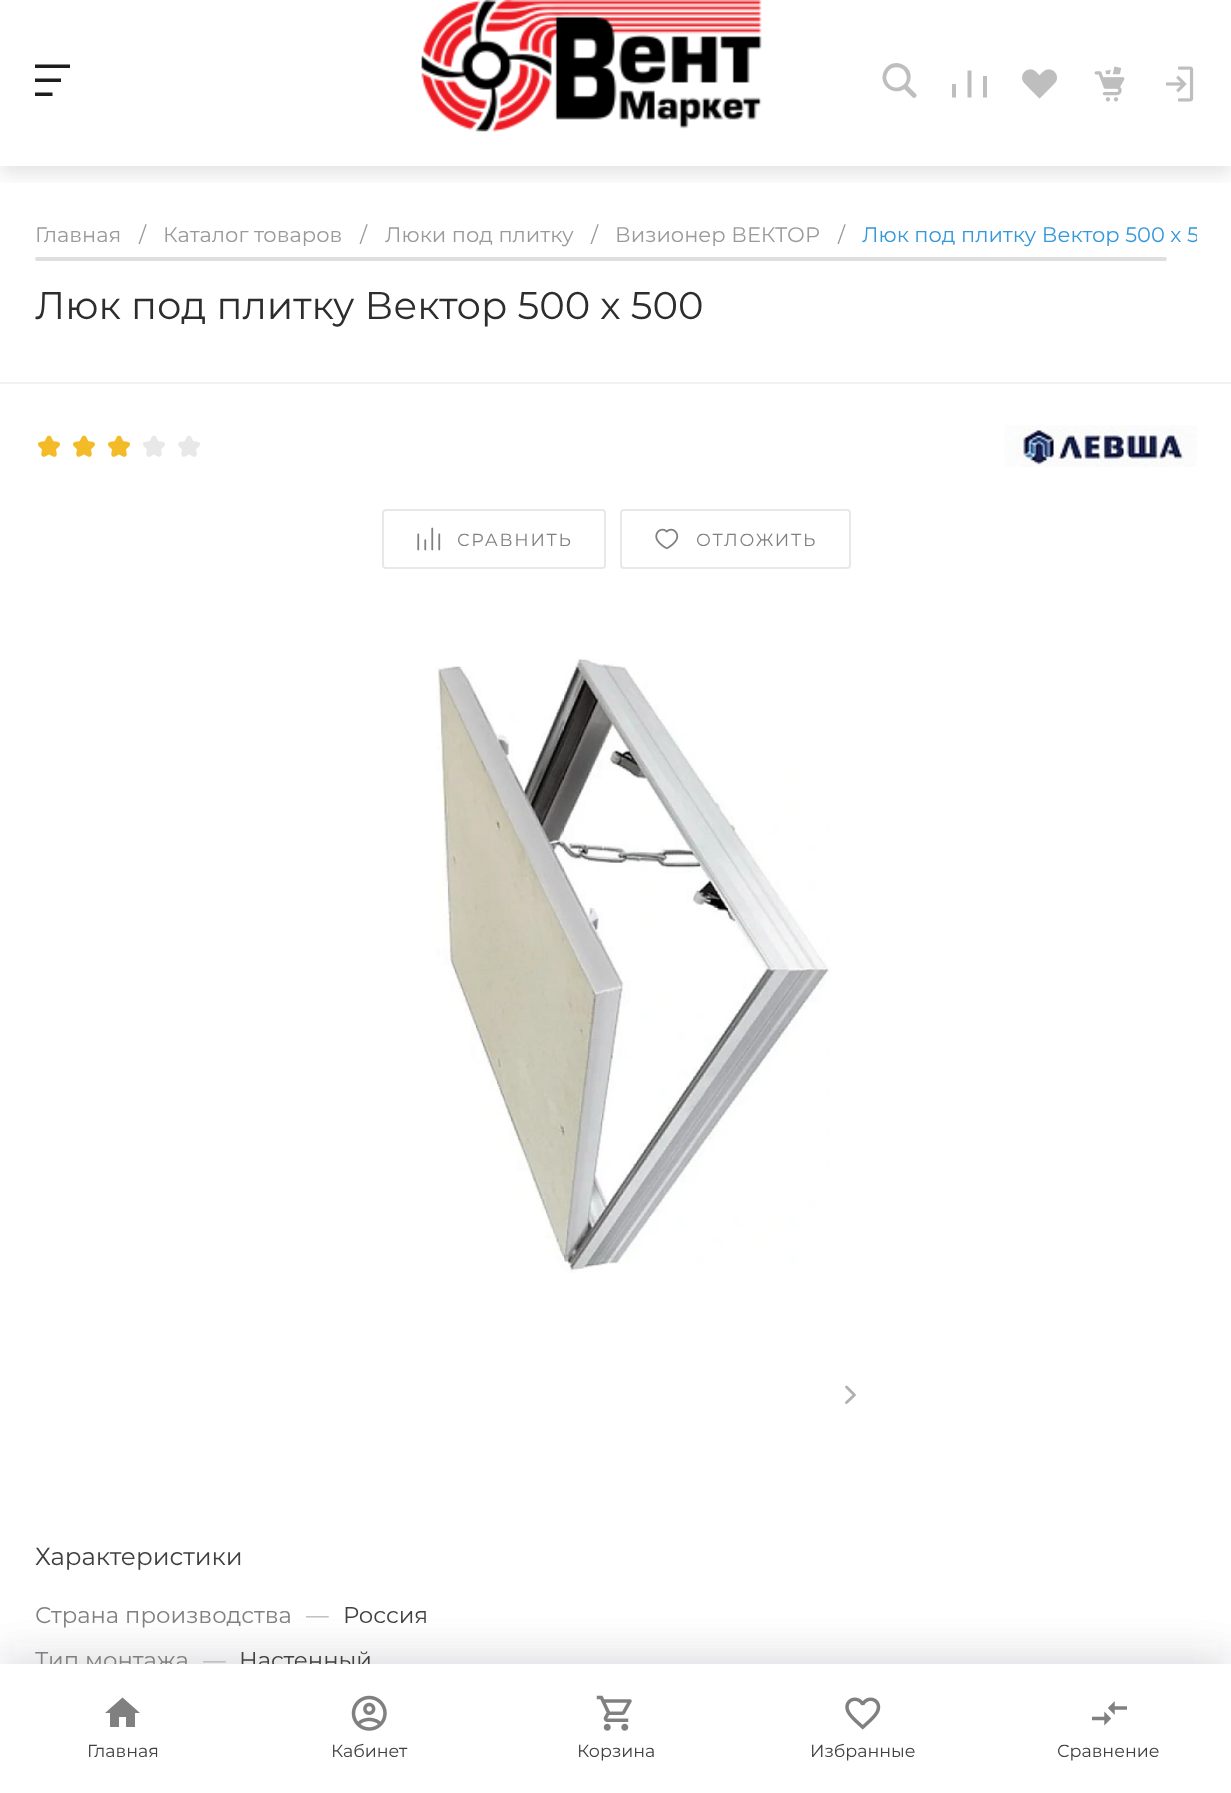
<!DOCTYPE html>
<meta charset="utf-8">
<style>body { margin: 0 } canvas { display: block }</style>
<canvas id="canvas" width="1231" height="1793"></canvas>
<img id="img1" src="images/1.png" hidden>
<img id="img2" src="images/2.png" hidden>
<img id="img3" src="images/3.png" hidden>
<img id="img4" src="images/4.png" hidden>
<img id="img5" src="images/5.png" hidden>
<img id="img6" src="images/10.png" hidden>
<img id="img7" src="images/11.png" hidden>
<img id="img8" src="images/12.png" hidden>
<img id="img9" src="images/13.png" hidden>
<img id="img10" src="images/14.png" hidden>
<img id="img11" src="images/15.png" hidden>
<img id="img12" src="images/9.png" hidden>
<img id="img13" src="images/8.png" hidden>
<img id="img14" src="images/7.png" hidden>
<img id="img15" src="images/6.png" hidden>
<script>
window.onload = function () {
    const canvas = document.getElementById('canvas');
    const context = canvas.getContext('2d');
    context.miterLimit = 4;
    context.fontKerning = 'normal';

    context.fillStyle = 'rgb(255, 255, 255)';
    context.fillRect(0, 0, 1231, 1793);
    context.save();
    context.beginPath();
    context.rect(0, 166, 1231, 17);
    context.clip();
    context.fillStyle = 'rgba(0, 0, 0, 0.1)';
    context.filter = 'blur(9px)';
    context.beginPath();
    context.rect(0, 9, 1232, 166);
    context.fill();
    context.filter = 'none';
    context.restore();
    context.fillStyle = 'rgb(29, 29, 29)';
    context.beginPath();
    context.moveTo(35, 64.5);
    context.lineTo(35, 68);
    context.lineTo(70, 68);
    context.lineTo(70, 64.5);
    context.closePath();
    context.moveTo(35, 78.5);
    context.lineTo(35, 82);
    context.lineTo(61, 82);
    context.lineTo(61, 78.5);
    context.closePath();
    context.moveTo(35, 92.5);
    context.lineTo(35, 96);
    context.lineTo(52.5, 96);
    context.lineTo(52.5, 92.5);
    context.closePath();
    context.fill();
    context.drawImage(document.getElementById('img1'), 421, 0, 341, 132);
    context.drawImage(document.getElementById('img2'), 882, 63, 35, 35);
    context.fillStyle = 'rgb(190, 190, 191)';
    context.beginPath();
    context.moveTo(952, 97.5);
    context.lineTo(956, 97.5);
    context.lineTo(956, 84);
    context.lineTo(952, 84);
    context.closePath();
    context.moveTo(967.5, 97.5);
    context.lineTo(971.5, 97.5);
    context.lineTo(971.5, 70.5);
    context.lineTo(967.5, 70.5);
    context.closePath();
    context.moveTo(983, 76);
    context.lineTo(987, 76);
    context.lineTo(987, 97.5);
    context.lineTo(983, 97.5);
    context.closePath();
    context.fill();
    context.drawImage(document.getElementById('img3'), 1022, 69, 35, 30);
    context.drawImage(document.getElementById('img4'), 1094, 66, 31, 36);
    context.drawImage(document.getElementById('img5'), 1165, 66, 29, 36);
    context.fillStyle = 'rgb(223, 223, 223)';
    context.beginPath();
    context.roundRect(35, 257, 1132, 4, 2);
    context.fill();
    context.fillStyle = 'rgba(27, 30, 37, 0.08)';
    context.filter = 'blur(21px)';
    context.beginPath();
    context.rect(0, 1657, 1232, 130);
    context.fill();
    context.filter = 'none';
    context.filter = 'blur(21px)';
    context.beginPath();
    context.rect(0, 1657, 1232, 130);
    context.fill();
    context.filter = 'none';
    context.fillStyle = 'rgb(242, 242, 242)';
    context.fillRect(0, 382, 1231, 2);
    context.drawImage(document.getElementById('img6'), 38, 435, 22, 22);
    context.drawImage(document.getElementById('img6'), 73, 435, 22, 22);
    context.drawImage(document.getElementById('img6'), 108, 435, 22, 22);
    context.drawImage(document.getElementById('img7'), 143, 435, 22, 22);
    context.drawImage(document.getElementById('img7'), 178, 435, 22, 22);
    context.drawImage(document.getElementById('img8'), 1004, 425, 193, 42);
    context.beginPath();
    context.roundRect(383, 510, 222, 58, 3);
    context.strokeStyle = 'rgb(232, 232, 232)';
    context.lineWidth = 2;
    context.stroke();
    context.drawImage(document.getElementById('img9'), 417, 527, 24, 24);
    context.beginPath();
    context.roundRect(621, 510, 229, 58, 3);
    context.stroke();
    context.drawImage(document.getElementById('img10'), 655, 528, 24, 22);
    context.drawImage(document.getElementById('img11'), 436, 658, 395, 615);
    context.beginPath();
    context.moveTo(846.5, 1387);
    context.lineTo(854.5, 1395);
    context.lineTo(846.5, 1402.5);
    context.strokeStyle = 'rgb(176, 176, 176)';
    context.lineWidth = 2.8;
    context.lineCap = 'round';
    context.lineJoin = 'round';
    context.stroke();
    context.font = '21px Montserrat';
    context.fillStyle = 'rgb(154, 154, 154)';
    context.fillText('Главная', 35, 242);
    context.fillText('/', 139, 242);
    context.fillText('Каталог товаров', 163, 242);
    context.fillText('/', 360, 242);
    context.fillText('Люки под плитку', 385, 242);
    context.fillText('/', 591, 242);
    context.fillText('Визионер ВЕКТОР', 615, 242);
    context.fillText('/', 838, 242);
    context.save();
    context.beginPath();
    context.rect(35, 219, 1162, 45);
    context.clip();
    context.fillStyle = 'rgb(52, 152, 219)';
    context.fillText('Люк под плитку Вектор 500 х 5', 862, 242);
    context.restore();
    context.font = '38.5px Montserrat';
    context.fillStyle = 'rgb(45, 45, 45)';
    context.fillText('Люк под плитку Вектор 500 х 500', 35, 319);
    context.letterSpacing = '1.75px';
    context.font = '17.5px Montserrat';
    context.fillStyle = 'rgb(128, 128, 128)';
    context.fillText('СРАВНИТЬ', 457, 546);
    context.fillText('ОТЛОЖИТЬ', 696, 546);
    context.letterSpacing = '0px';
    context.font = '24.5px Montserrat';
    context.fillStyle = 'rgb(64, 64, 64)';
    context.fillText('Характеристики', 35, 1565);
    context.font = '22.75px Montserrat';
    context.fillStyle = 'rgb(128, 128, 128)';
    context.fillText('Страна производства', 35, 1623);
    context.fillStyle = 'rgb(176, 176, 176)';
    context.fillText('—', 306, 1623);
    context.fillStyle = 'rgb(64, 64, 64)';
    context.fillText('Россия', 343, 1623);
    context.fillStyle = 'rgb(128, 128, 128)';
    context.fillText('Тип монтажа', 35, 1668);
    context.fillStyle = 'rgb(176, 176, 176)';
    context.fillText('—', 203, 1668);
    context.fillStyle = 'rgb(64, 64, 64)';
    context.fillText('Настенный', 239, 1668);
    context.fillStyle = 'rgb(255, 255, 255)';
    context.fillRect(0, 1664, 1231, 129);
    context.font = '17.5px Montserrat';
    context.fillStyle = 'rgb(64, 64, 64)';
    context.fillText('Сравнение', 1057, 1757);
    context.drawImage(document.getElementById('img12'), 1092, 1701, 35, 25);
    context.fillText('Избранные', 810, 1757);
    context.drawImage(document.getElementById('img13'), 845, 1697, 36, 33);
    context.fillText('Корзина', 577, 1757);
    context.drawImage(document.getElementById('img14'), 596, 1695, 36, 36);
    context.fillText('Кабинет', 331, 1757);
    context.drawImage(document.getElementById('img15'), 351, 1695, 36, 36);
    context.fillText('Главная', 87, 1757);
    context.fillStyle = 'rgb(128, 128, 128)';
    context.beginPath();
    context.moveTo(119, 1727);
    context.lineTo(119, 1717);
    context.lineTo(126, 1717);
    context.lineTo(126, 1727);
    context.lineTo(135, 1727);
    context.lineTo(135, 1713);
    context.lineTo(140, 1713);
    context.lineTo(122.5, 1697.5);
    context.lineTo(105, 1713);
    context.lineTo(110, 1713);
    context.lineTo(110, 1727);
    context.closePath();
    context.fill();
};
</script>
